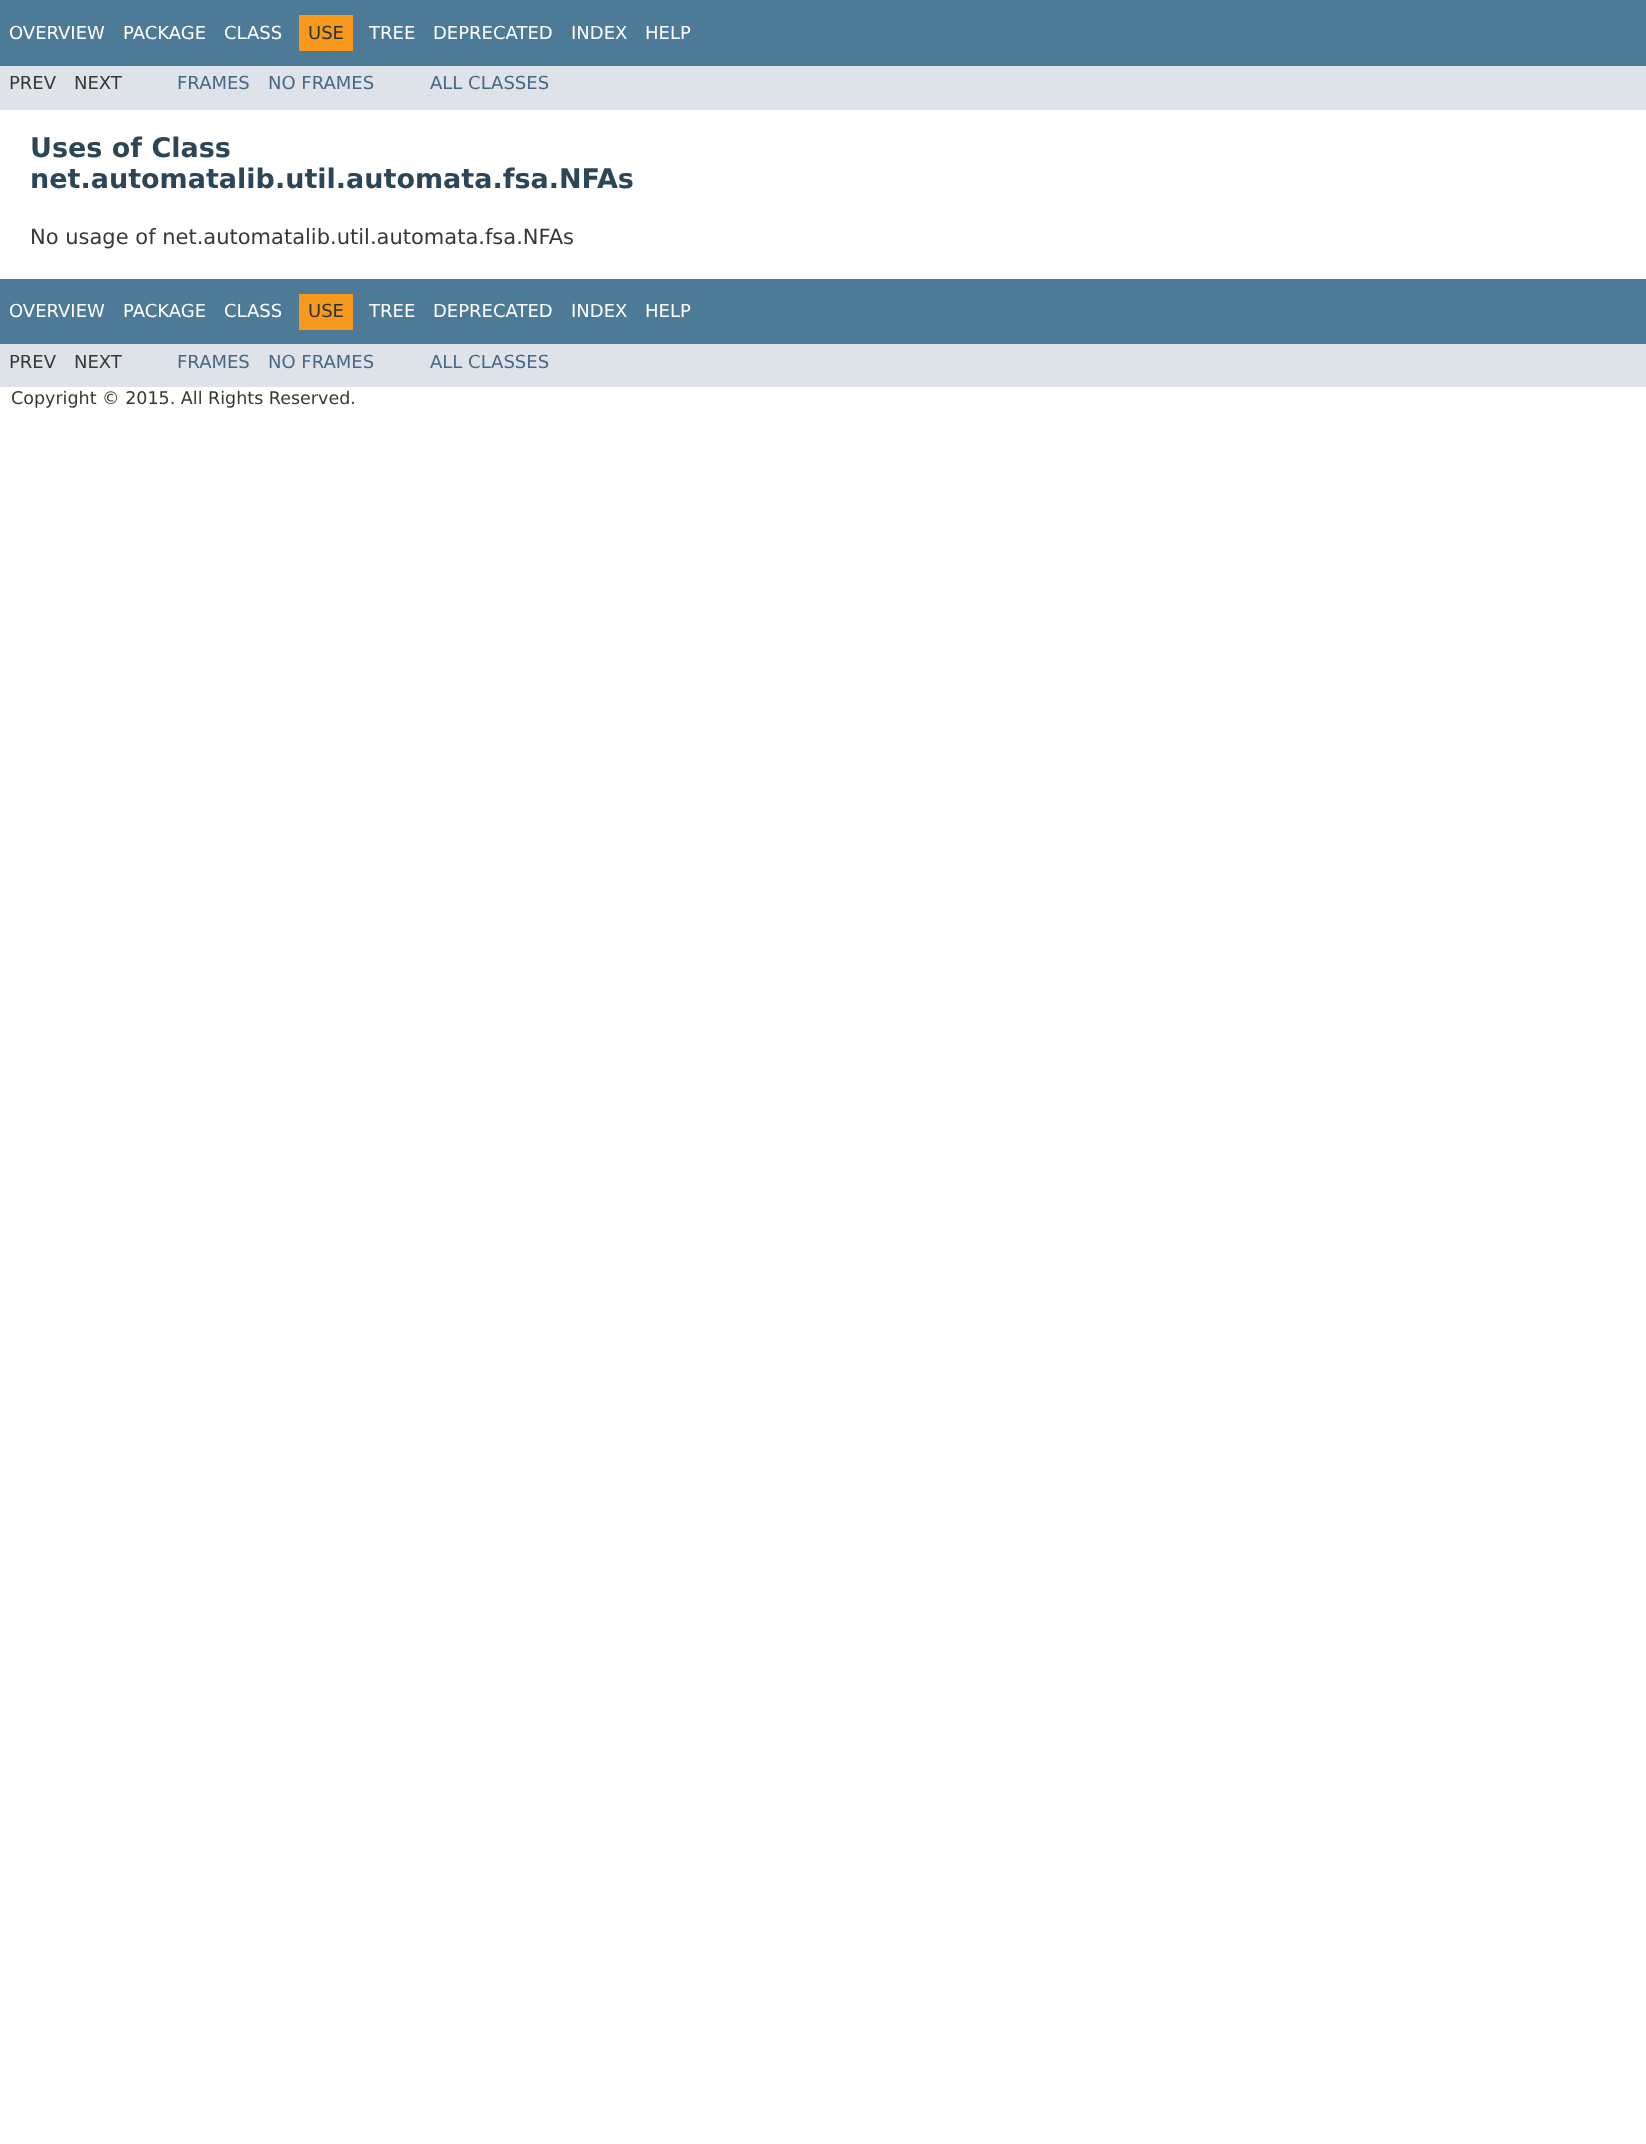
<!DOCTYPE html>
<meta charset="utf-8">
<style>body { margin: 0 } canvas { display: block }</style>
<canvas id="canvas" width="1646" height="2144"></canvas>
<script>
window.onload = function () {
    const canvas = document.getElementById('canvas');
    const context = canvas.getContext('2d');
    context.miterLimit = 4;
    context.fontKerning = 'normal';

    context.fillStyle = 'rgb(255, 255, 255)';
    context.fillRect(0, 0, 1646, 2144);
    context.fillStyle = 'rgb(77, 122, 151)';
    context.fillRect(0, 0, 1646, 66);
    context.fillStyle = 'rgb(248, 152, 29)';
    context.fillRect(299, 15, 54, 36);
    context.fillStyle = 'rgb(222, 227, 233)';
    context.fillRect(0, 66, 1646, 44);
    context.fillStyle = 'rgb(77, 122, 151)';
    context.fillRect(0, 279, 1646, 65);
    context.fillStyle = 'rgb(248, 152, 29)';
    context.fillRect(299, 294, 54, 36);
    context.fillStyle = 'rgb(222, 227, 233)';
    context.fillRect(0, 344, 1646, 43);
    context.font = '18px DejaVu Sans';
    context.fillStyle = 'rgb(255, 255, 255)';
    context.fillText('OVERVIEW', 9, 39);
    context.fillText('PACKAGE', 123, 39);
    context.fillText('CLASS', 224, 39);
    context.fillStyle = 'rgb(37, 52, 65)';
    context.fillText('USE', 308, 39);
    context.fillStyle = 'rgb(255, 255, 255)';
    context.fillText('TREE', 369, 39);
    context.fillText('DEPRECATED', 433, 39);
    context.fillText('INDEX', 571, 39);
    context.fillText('HELP', 645, 39);
    context.fillStyle = 'rgb(53, 56, 51)';
    context.fillText('PREV', 9, 89);
    context.fillText('NEXT', 74, 89);
    context.fillStyle = 'rgb(74, 103, 130)';
    context.fillText('FRAMES', 177, 89);
    context.fillText('NO FRAMES', 268, 89);
    context.fillText('ALL CLASSES', 430, 89);
    context.font = 'bold 27px DejaVu Sans';
    context.fillStyle = 'rgb(44, 69, 87)';
    context.fillText('Uses of Class', 30, 157);
    context.fillText('net.automatalib.util.automata.fsa.NFAs', 30, 188);
    context.font = '21px DejaVu Sans';
    context.fillStyle = 'rgb(53, 56, 51)';
    context.fillText('No usage of net.automatalib.util.automata.fsa.NFAs', 30, 244);
    context.font = '18px DejaVu Sans';
    context.fillStyle = 'rgb(255, 255, 255)';
    context.fillText('OVERVIEW', 9, 317);
    context.fillText('PACKAGE', 123, 317);
    context.fillText('CLASS', 224, 317);
    context.fillStyle = 'rgb(37, 52, 65)';
    context.fillText('USE', 308, 317);
    context.fillStyle = 'rgb(255, 255, 255)';
    context.fillText('TREE', 369, 317);
    context.fillText('DEPRECATED', 433, 317);
    context.fillText('INDEX', 571, 317);
    context.fillText('HELP', 645, 317);
    context.fillStyle = 'rgb(53, 56, 51)';
    context.fillText('PREV', 9, 368);
    context.fillText('NEXT', 74, 368);
    context.fillStyle = 'rgb(74, 103, 130)';
    context.fillText('FRAMES', 177, 368);
    context.fillText('NO FRAMES', 268, 368);
    context.fillText('ALL CLASSES', 430, 368);
    context.font = '17.5px DejaVu Sans';
    context.fillStyle = 'rgb(53, 56, 51)';
    context.fillText('Copyright © 2015. All Rights Reserved.', 11, 404);
};
</script>
